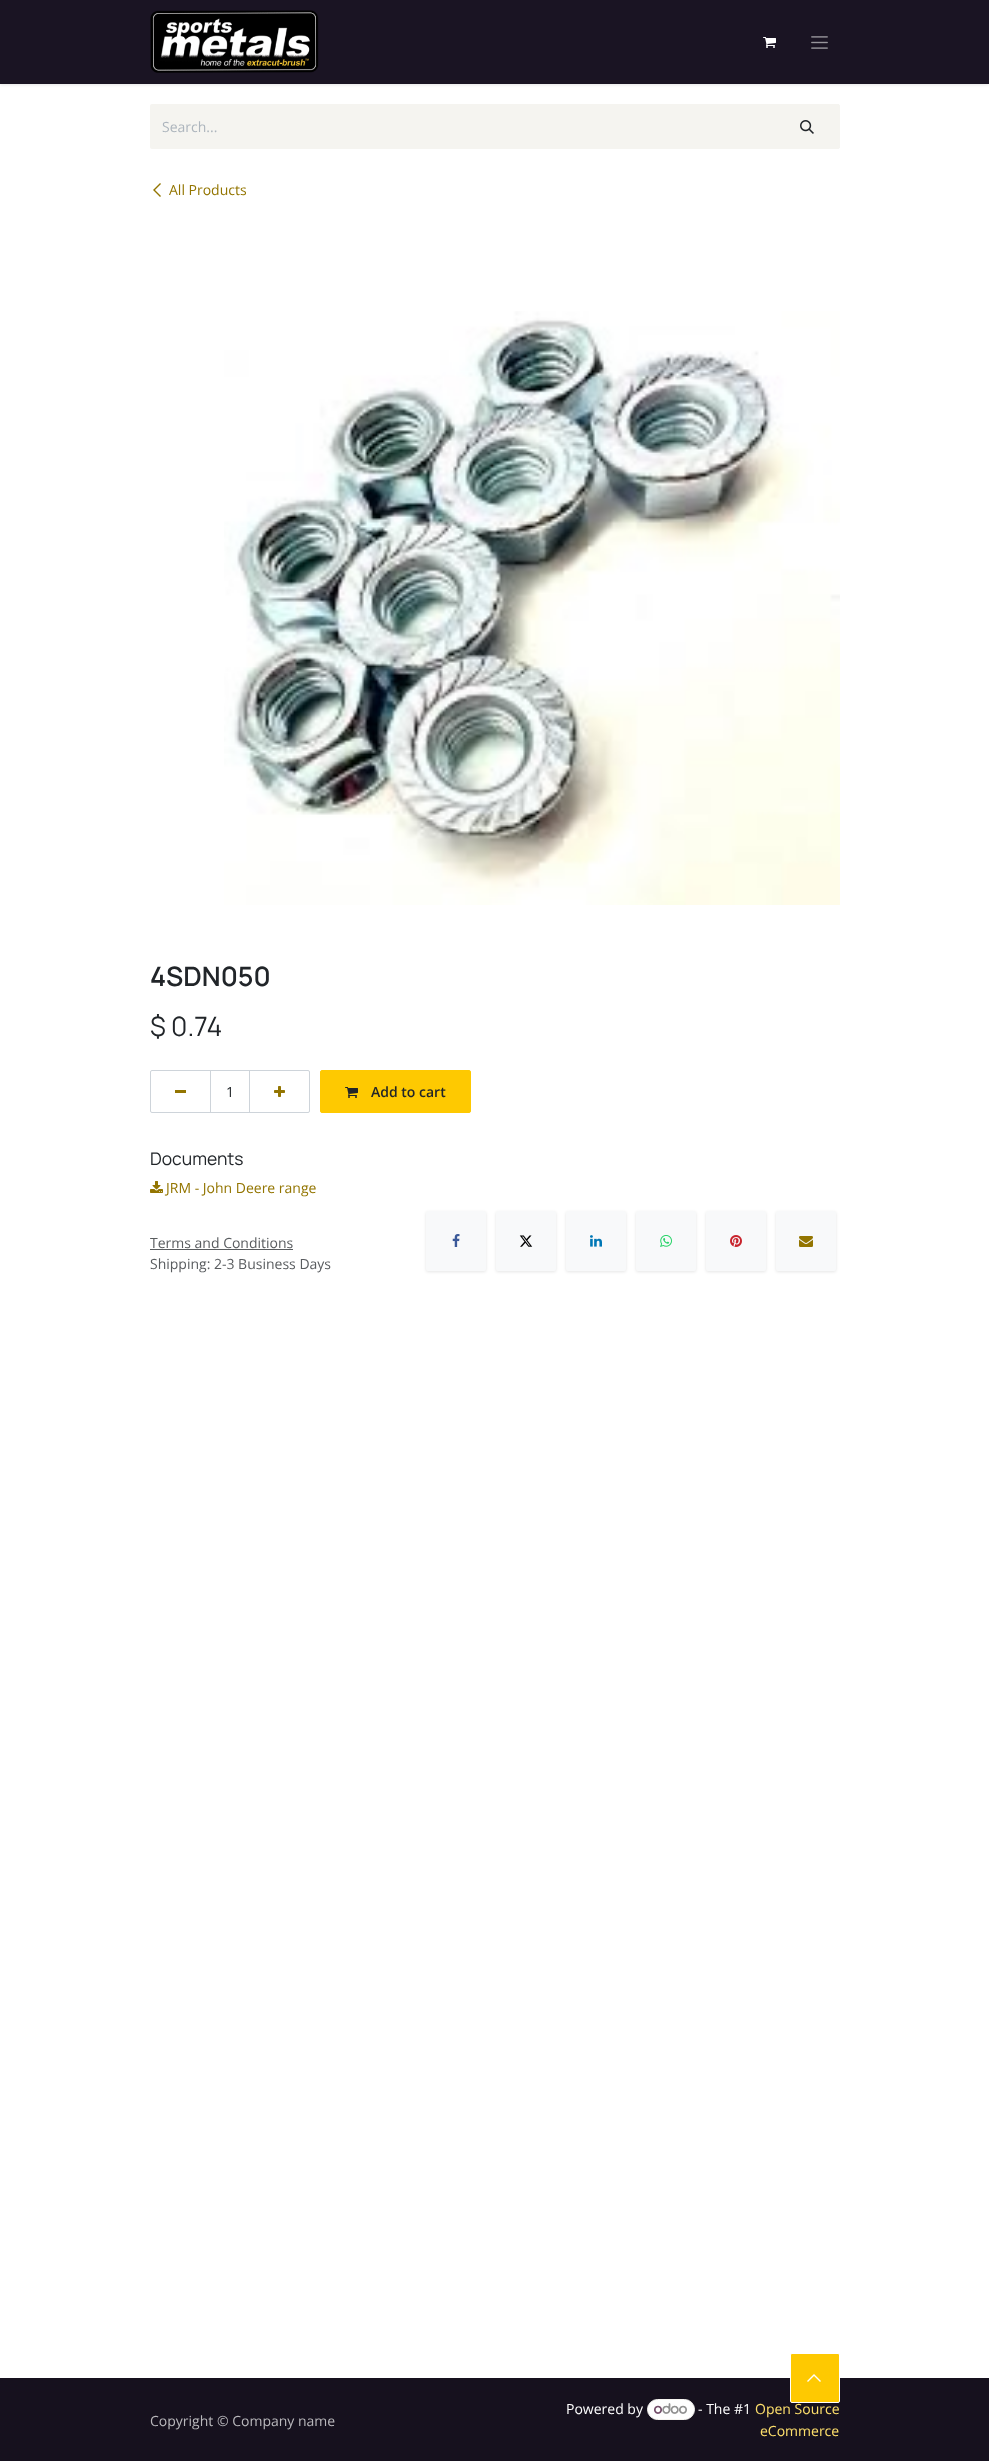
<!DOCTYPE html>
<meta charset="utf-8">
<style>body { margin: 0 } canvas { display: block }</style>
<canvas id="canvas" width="989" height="2461"></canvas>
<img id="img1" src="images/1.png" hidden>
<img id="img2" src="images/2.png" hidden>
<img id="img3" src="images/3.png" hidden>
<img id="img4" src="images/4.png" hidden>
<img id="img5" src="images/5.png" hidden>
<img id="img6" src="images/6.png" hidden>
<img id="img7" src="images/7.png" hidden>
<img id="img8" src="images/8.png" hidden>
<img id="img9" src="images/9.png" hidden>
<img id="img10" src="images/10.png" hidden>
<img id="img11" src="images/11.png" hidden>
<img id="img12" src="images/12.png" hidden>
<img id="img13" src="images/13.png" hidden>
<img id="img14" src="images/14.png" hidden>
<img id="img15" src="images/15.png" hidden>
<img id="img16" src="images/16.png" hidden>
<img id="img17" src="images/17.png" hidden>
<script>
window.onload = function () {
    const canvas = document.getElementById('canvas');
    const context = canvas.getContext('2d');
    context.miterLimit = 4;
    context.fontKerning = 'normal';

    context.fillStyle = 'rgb(255, 255, 255)';
    context.fillRect(0, 0, 989, 2461);
    context.fillStyle = 'rgba(0, 0, 0, 0.1)';
    context.filter = 'blur(1.5px)';
    context.beginPath();
    context.rect(0, 1, 989, 84);
    context.fill();
    context.filter = 'none';
    context.fillStyle = 'rgb(26, 20, 35)';
    context.fillRect(0, 0, 989, 84);
    context.drawImage(document.getElementById('img1'), 150, 10, 169, 63);
    context.drawImage(document.getElementById('img2'), 763, 37, 13, 11);
    context.drawImage(document.getElementById('img3'), 811, 36, 17, 13);
    context.fillStyle = 'rgb(245, 244, 240)';
    context.beginPath();
    context.roundRect(150, 104, 626, 45, [2, 0, 0, 2]);
    context.fill();
    context.beginPath();
    context.roundRect(775.5, 104.5, 64, 44, [0, 1.5, 1.5, 0]);
    context.fill();
    context.strokeStyle = 'rgb(245, 244, 240)';
    context.stroke();
    context.drawImage(document.getElementById('img4'), 800, 120, 14, 14);
    context.drawImage(document.getElementById('img5'), 153, 183, 8, 14);
    context.drawImage(document.getElementById('img6'), 224, 311, 616, 594);
    context.strokeStyle = 'rgb(206, 212, 218)';
    context.strokeRect(210.5, 1070.5, 39, 42);
    context.beginPath();
    context.roundRect(150.5, 1070.5, 60, 42, [1.5, 0, 0, 1.5]);
    context.stroke();
    context.fillStyle = 'rgb(147, 117, 1)';
    context.fillRect(175, 1090, 11, 3);
    context.beginPath();
    context.roundRect(249.5, 1070.5, 60, 42, [0, 1.5, 1.5, 0]);
    context.stroke();
    context.drawImage(document.getElementById('img7'), 274, 1086, 11, 11);
    context.fillStyle = 'rgb(254, 201, 1)';
    context.beginPath();
    context.roundRect(320.5, 1070.5, 150, 42, 1.5);
    context.fill();
    context.strokeStyle = 'rgb(254, 201, 1)';
    context.stroke();
    context.drawImage(document.getElementById('img8'), 345, 1087, 13, 11);
    context.drawImage(document.getElementById('img9'), 150, 1181, 13, 12);
    context.fillStyle = 'rgb(89, 92, 95)';
    context.fillRect(150, 1249, 143, 1);
    context.fillStyle = 'rgba(0, 0, 0, 0.1)';
    context.filter = 'blur(1.5px)';
    context.beginPath();
    context.roundRect(426, 1212, 60, 60, 2);
    context.fill();
    context.filter = 'none';
    context.fillStyle = 'rgb(248, 249, 250)';
    context.beginPath();
    context.roundRect(426, 1211, 60, 60, 2);
    context.fill();
    context.drawImage(document.getElementById('img10'), 452, 1234, 8, 13);
    context.fillStyle = 'rgba(0, 0, 0, 0.1)';
    context.filter = 'blur(1.5px)';
    context.beginPath();
    context.roundRect(496, 1212, 60, 60, 2);
    context.fill();
    context.filter = 'none';
    context.fillStyle = 'rgb(248, 249, 250)';
    context.beginPath();
    context.roundRect(496, 1211, 60, 60, 2);
    context.fill();
    context.drawImage(document.getElementById('img11'), 519, 1235, 14, 12);
    context.fillStyle = 'rgba(0, 0, 0, 0.1)';
    context.filter = 'blur(1.5px)';
    context.beginPath();
    context.roundRect(566, 1212, 60, 60, 2);
    context.fill();
    context.filter = 'none';
    context.fillStyle = 'rgb(248, 249, 250)';
    context.beginPath();
    context.roundRect(566, 1211, 60, 60, 2);
    context.fill();
    context.drawImage(document.getElementById('img12'), 590, 1235, 12, 12);
    context.fillStyle = 'rgba(0, 0, 0, 0.1)';
    context.filter = 'blur(1.5px)';
    context.beginPath();
    context.roundRect(636, 1212, 60, 60, 2);
    context.fill();
    context.filter = 'none';
    context.fillStyle = 'rgb(248, 249, 250)';
    context.beginPath();
    context.roundRect(636, 1211, 60, 60, 2);
    context.fill();
    context.drawImage(document.getElementById('img13'), 660, 1235, 12, 12);
    context.fillStyle = 'rgba(0, 0, 0, 0.1)';
    context.filter = 'blur(1.5px)';
    context.beginPath();
    context.roundRect(706, 1212, 60, 60, 2);
    context.fill();
    context.filter = 'none';
    context.fillStyle = 'rgb(248, 249, 250)';
    context.beginPath();
    context.roundRect(706, 1211, 60, 60, 2);
    context.fill();
    context.drawImage(document.getElementById('img14'), 730, 1235, 12, 12);
    context.fillStyle = 'rgba(0, 0, 0, 0.1)';
    context.filter = 'blur(1.5px)';
    context.beginPath();
    context.roundRect(776, 1212, 60, 60, 2);
    context.fill();
    context.filter = 'none';
    context.fillStyle = 'rgb(248, 249, 250)';
    context.beginPath();
    context.roundRect(776, 1211, 60, 60, 2);
    context.fill();
    context.drawImage(document.getElementById('img15'), 799, 1236, 14, 11);
    context.fillStyle = 'rgb(22, 17, 30)';
    context.fillRect(0, 2378, 989, 83);
    context.fillStyle = 'rgb(254, 201, 1)';
    context.beginPath();
    context.roundRect(790.5, 2353.5, 49, 49, 1.5);
    context.fill();
    context.strokeStyle = 'rgb(255, 255, 255)';
    context.stroke();
    context.drawImage(document.getElementById('img16'), 807, 2374, 14, 8);
    context.fillStyle = 'rgb(254, 254, 254)';
    context.beginPath();
    context.roundRect(647.5, 2399.5, 47, 20, 10);
    context.fill();
    context.strokeStyle = 'rgb(245, 244, 240)';
    context.stroke();
    context.drawImage(document.getElementById('img17'), 654, 2403, 33, 11);
    context.font = '14px Open Sans';
    context.fillStyle = 'rgb(173, 181, 189)';
    context.fillText('Search...', 162, 132);
    context.fillStyle = 'rgb(147, 117, 1)';
    context.fillText('All Products', 169, 195);
    context.font = '600 26.75px Manrope';
    context.fillStyle = 'rgb(33, 37, 41)';
    context.fillText('4SDN050', 150, 986);
    context.font = '26.75px Manrope';
    context.fillText('$ 0.74', 150, 1036);
    context.font = '14px Open Sans';
    context.fillText('1', 226, 1097);
    context.font = '600 14px Open Sans';
    context.fillText('Add to cart', 371, 1097);
    context.font = '17.5px Manrope';
    context.fillText('Documents', 150, 1165);
    context.font = '14px Open Sans';
    context.fillStyle = 'rgb(147, 117, 1)';
    context.fillText('JRM - John Deere range', 166, 1193);
    context.fillStyle = 'rgb(89, 92, 95)';
    context.fillText('Terms and Conditions', 150, 1248);
    context.fillText('Shipping: 2-3 Business Days', 150, 1269);
    context.fillStyle = 'rgb(185, 184, 188)';
    context.fillText('Copyright © Company name', 150, 2426);
    context.fillStyle = 'rgb(255, 255, 255)';
    context.fillText('Powered by', 566, 2414);
    context.fillText('- The #1', 698, 2414);
    context.fillStyle = 'rgb(254, 224, 108)';
    context.fillText('Open Source', 755, 2414);
    context.fillText('eCommerce', 760, 2436);
};
</script>
